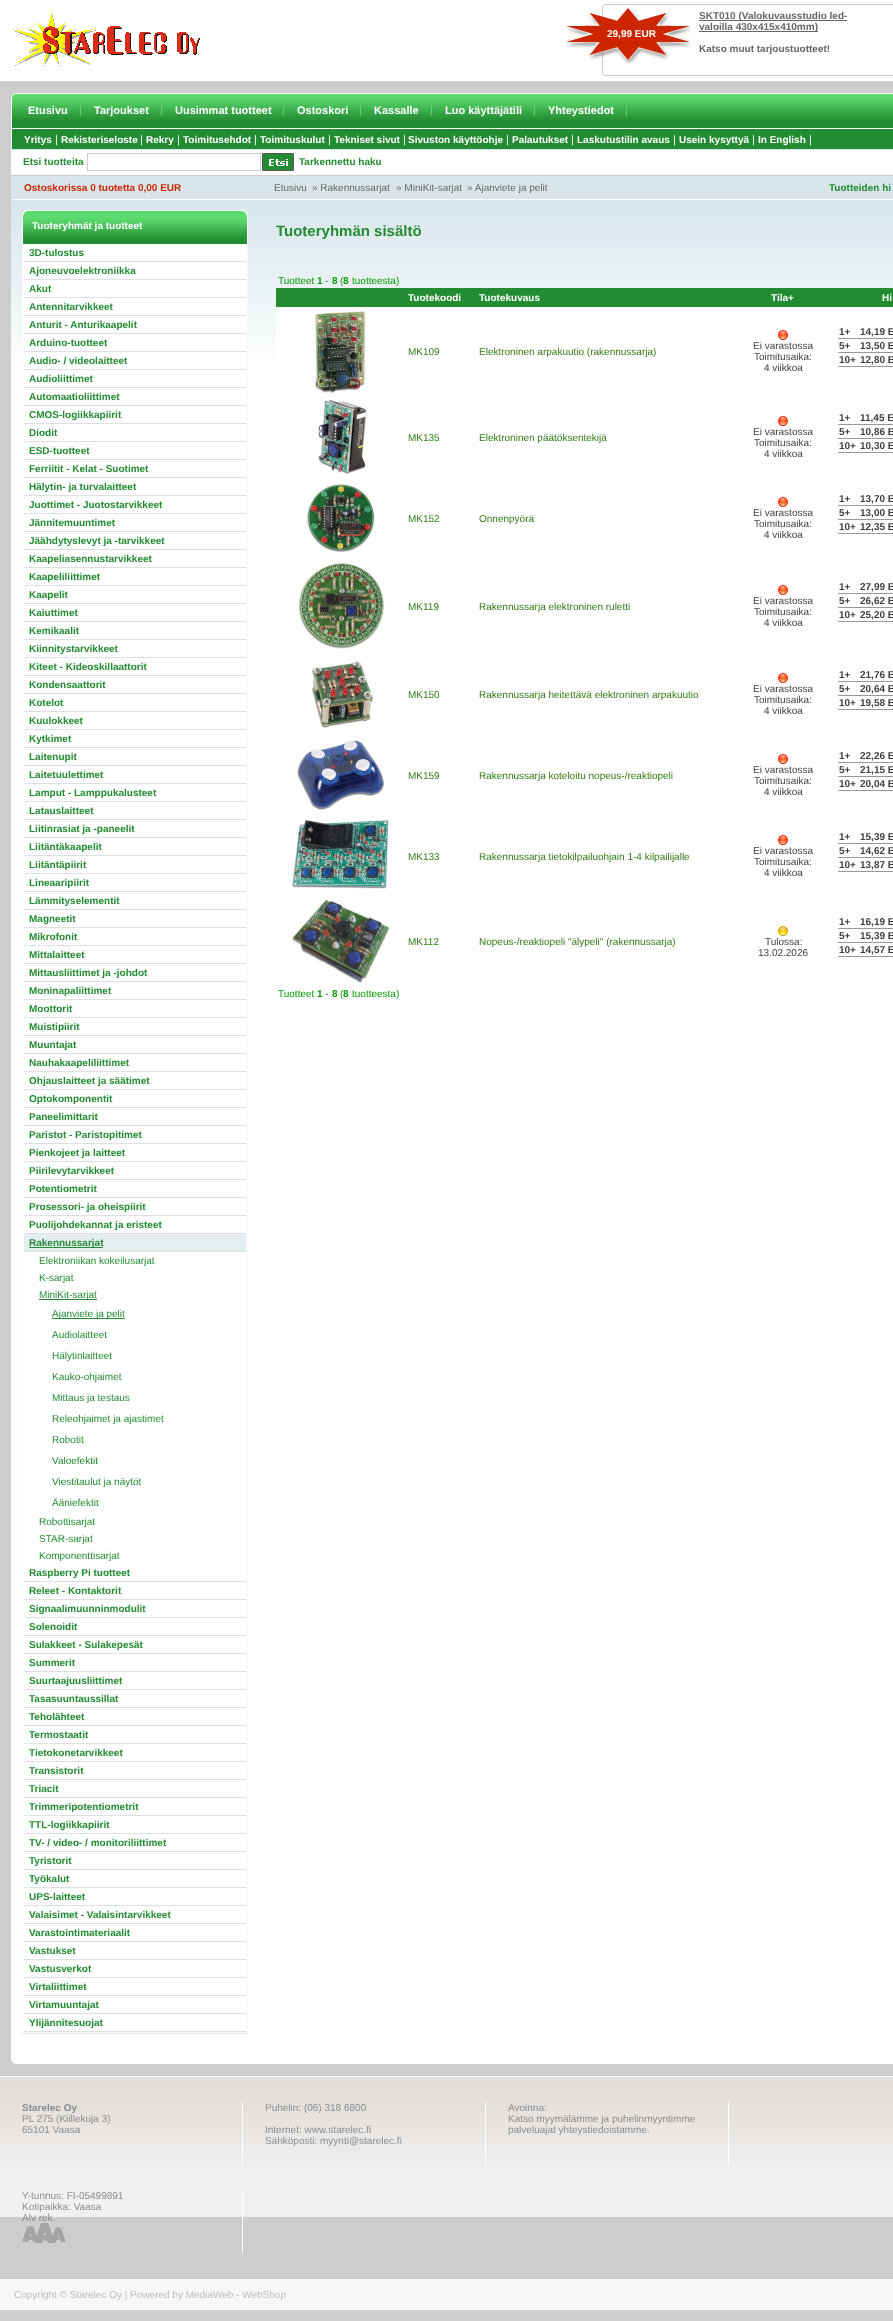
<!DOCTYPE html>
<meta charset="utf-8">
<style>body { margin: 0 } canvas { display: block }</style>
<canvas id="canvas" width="893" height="2321"></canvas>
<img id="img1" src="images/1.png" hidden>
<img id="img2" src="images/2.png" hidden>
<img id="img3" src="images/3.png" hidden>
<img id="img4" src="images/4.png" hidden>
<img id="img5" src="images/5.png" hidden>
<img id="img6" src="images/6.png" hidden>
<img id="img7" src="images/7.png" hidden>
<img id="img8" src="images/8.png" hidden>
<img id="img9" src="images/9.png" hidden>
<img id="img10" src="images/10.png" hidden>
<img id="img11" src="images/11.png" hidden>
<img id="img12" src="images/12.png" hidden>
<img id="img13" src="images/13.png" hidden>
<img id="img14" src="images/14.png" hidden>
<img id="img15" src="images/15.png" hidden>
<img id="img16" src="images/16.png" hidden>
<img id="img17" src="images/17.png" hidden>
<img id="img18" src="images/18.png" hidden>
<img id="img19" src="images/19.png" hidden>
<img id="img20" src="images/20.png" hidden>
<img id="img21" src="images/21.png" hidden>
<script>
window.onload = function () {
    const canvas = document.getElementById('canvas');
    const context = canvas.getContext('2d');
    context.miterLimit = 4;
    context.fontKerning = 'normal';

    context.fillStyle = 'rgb(205, 205, 205)';
    context.fillRect(0, 0, 893, 2321);
    context.fillStyle = 'rgb(255, 255, 255)';
    context.fillRect(0, 0, 893, 81);
    context.drawImage(document.getElementById('img1'), 13, 13, 187, 53);
    context.drawImage(document.getElementById('img2'), 566, 4, 327, 72);
    context.fillStyle = 'rgb(102, 102, 102)';
    context.fillRect(699, 20, 148, 1);
    context.fillRect(699, 31, 119, 1);
    context.drawImage(document.getElementById('img3'), 11, 93, 882, 36);
    context.drawImage(document.getElementById('img4'), 11, 93, 4, 35);
    context.drawImage(document.getElementById('img5'), 79, 105, 2, 11);
    context.drawImage(document.getElementById('img5'), 160, 105, 2, 11);
    context.drawImage(document.getElementById('img5'), 282, 105, 2, 11);
    context.drawImage(document.getElementById('img5'), 359, 105, 2, 11);
    context.drawImage(document.getElementById('img5'), 430, 105, 2, 11);
    context.drawImage(document.getElementById('img5'), 533, 105, 2, 11);
    context.drawImage(document.getElementById('img5'), 625, 105, 2, 11);
    context.fillStyle = 'rgb(35, 139, 50)';
    context.fillRect(12, 129, 881, 20);
    context.fillStyle = 'rgb(255, 255, 255)';
    context.fillRect(11, 129, 1, 20);
    context.fillRect(11, 150, 882, 25);
    context.fillStyle = 'rgb(210, 226, 232)';
    context.fillRect(11, 149, 882, 1);
    context.strokeStyle = 'rgb(204, 204, 204)';
    context.strokeRect(87.5, 153.5, 173, 17);
    context.drawImage(document.getElementById('img6'), 262, 153, 32, 18);
    context.fillStyle = 'rgb(216, 230, 235)';
    context.fillRect(12, 176, 881, 23);
    context.fillStyle = 'rgb(255, 255, 255)';
    context.fillRect(11, 199, 882, 1);
    context.fillStyle = 'rgb(216, 230, 235)';
    context.fillRect(11, 176, 1, 24);
    context.fillStyle = 'rgb(255, 255, 255)';
    context.fillRect(11, 359, 882, 1705);
    context.drawImage(document.getElementById('img7'), 11, 200, 882, 159);
    context.fillStyle = 'rgb(250, 250, 250)';
    context.fillRect(22, 244, 226, 1789);
    context.drawImage(document.getElementById('img8'), 22, 210, 226, 34);
    context.fillStyle = 'rgb(255, 255, 255)';
    context.fillRect(23, 244, 223, 1788);
    context.fillStyle = 'rgb(224, 223, 227)';
    context.fillRect(24, 261, 222, 1);
    context.fillRect(24, 279, 222, 1);
    context.fillRect(24, 297, 222, 1);
    context.fillRect(24, 315, 222, 1);
    context.fillRect(24, 333, 222, 1);
    context.fillRect(24, 351, 222, 1);
    context.fillRect(24, 369, 222, 1);
    context.fillRect(24, 387, 222, 1);
    context.fillRect(24, 405, 222, 1);
    context.fillRect(24, 423, 222, 1);
    context.fillRect(24, 441, 222, 1);
    context.fillRect(24, 459, 222, 1);
    context.fillRect(24, 477, 222, 1);
    context.fillRect(24, 495, 222, 1);
    context.fillRect(24, 513, 222, 1);
    context.fillRect(24, 531, 222, 1);
    context.fillRect(24, 549, 222, 1);
    context.fillRect(24, 567, 222, 1);
    context.fillRect(24, 585, 222, 1);
    context.fillRect(24, 603, 222, 1);
    context.fillRect(24, 621, 222, 1);
    context.fillRect(24, 639, 222, 1);
    context.fillRect(24, 657, 222, 1);
    context.fillRect(24, 675, 222, 1);
    context.fillRect(24, 693, 222, 1);
    context.fillRect(24, 711, 222, 1);
    context.fillRect(24, 729, 222, 1);
    context.fillRect(24, 747, 222, 1);
    context.fillRect(24, 765, 222, 1);
    context.fillRect(24, 783, 222, 1);
    context.fillRect(24, 801, 222, 1);
    context.fillRect(24, 819, 222, 1);
    context.fillRect(24, 837, 222, 1);
    context.fillRect(24, 855, 222, 1);
    context.fillRect(24, 873, 222, 1);
    context.fillRect(24, 891, 222, 1);
    context.fillRect(24, 909, 222, 1);
    context.fillRect(24, 927, 222, 1);
    context.fillRect(24, 945, 222, 1);
    context.fillRect(24, 963, 222, 1);
    context.fillRect(24, 981, 222, 1);
    context.fillRect(24, 999, 222, 1);
    context.fillRect(24, 1017, 222, 1);
    context.fillRect(24, 1035, 222, 1);
    context.fillRect(24, 1053, 222, 1);
    context.fillRect(24, 1071, 222, 1);
    context.fillRect(24, 1089, 222, 1);
    context.fillRect(24, 1107, 222, 1);
    context.fillRect(24, 1125, 222, 1);
    context.fillRect(24, 1143, 222, 1);
    context.fillRect(24, 1161, 222, 1);
    context.fillRect(24, 1179, 222, 1);
    context.fillRect(24, 1197, 222, 1);
    context.fillRect(24, 1215, 222, 1);
    context.fillRect(24, 1233, 222, 1);
    context.fillStyle = 'rgb(228, 238, 241)';
    context.fillRect(24, 1234, 222, 17);
    context.fillStyle = 'rgb(224, 223, 227)';
    context.fillRect(24, 1251, 222, 1);
    context.fillStyle = 'rgb(37, 141, 51)';
    context.fillRect(29, 1247, 74, 1);
    context.fillRect(39, 1299, 58, 1);
    context.fillRect(52, 1318, 73, 1);
    context.fillStyle = 'rgb(224, 223, 227)';
    context.fillRect(24, 1581, 222, 1);
    context.fillRect(24, 1599, 222, 1);
    context.fillRect(24, 1617, 222, 1);
    context.fillRect(24, 1635, 222, 1);
    context.fillRect(24, 1653, 222, 1);
    context.fillRect(24, 1671, 222, 1);
    context.fillRect(24, 1689, 222, 1);
    context.fillRect(24, 1707, 222, 1);
    context.fillRect(24, 1725, 222, 1);
    context.fillRect(24, 1743, 222, 1);
    context.fillRect(24, 1761, 222, 1);
    context.fillRect(24, 1779, 222, 1);
    context.fillRect(24, 1797, 222, 1);
    context.fillRect(24, 1815, 222, 1);
    context.fillRect(24, 1833, 222, 1);
    context.fillRect(24, 1851, 222, 1);
    context.fillRect(24, 1869, 222, 1);
    context.fillRect(24, 1887, 222, 1);
    context.fillRect(24, 1905, 222, 1);
    context.fillRect(24, 1923, 222, 1);
    context.fillRect(24, 1941, 222, 1);
    context.fillRect(24, 1959, 222, 1);
    context.fillRect(24, 1977, 222, 1);
    context.fillRect(24, 1995, 222, 1);
    context.fillRect(24, 2013, 222, 1);
    context.fillRect(24, 2031, 222, 1);
    context.fillStyle = 'rgb(229, 229, 229)';
    context.fillRect(22, 2033, 226, 1);
    context.fillStyle = 'rgb(35, 139, 49)';
    context.fillRect(276, 288, 617, 19);
    context.fillStyle = 'rgb(255, 255, 255)';
    context.fillRect(276, 307, 617, 52);
    context.drawImage(document.getElementById('img9'), 315, 311, 51, 82);
    context.drawImage(document.getElementById('img10'), 778, 330, 10, 10);
    context.fillStyle = 'rgb(153, 153, 153)';
    context.fillRect(838, 338, 55, 1);
    context.fillRect(838, 352, 55, 1);
    context.fillRect(838, 366, 55, 1);
    context.drawImage(document.getElementById('img11'), 318, 400, 49, 74);
    context.drawImage(document.getElementById('img10'), 778, 416, 10, 10);
    context.fillRect(838, 424, 55, 1);
    context.fillRect(838, 438, 55, 1);
    context.fillRect(838, 452, 55, 1);
    context.drawImage(document.getElementById('img12'), 307, 484, 68, 69);
    context.drawImage(document.getElementById('img10'), 778, 497, 10, 10);
    context.fillRect(838, 505, 55, 1);
    context.fillRect(838, 519, 55, 1);
    context.fillRect(838, 533, 55, 1);
    context.drawImage(document.getElementById('img13'), 298, 563, 87, 86);
    context.drawImage(document.getElementById('img10'), 778, 585, 10, 10);
    context.fillRect(838, 593, 55, 1);
    context.fillRect(838, 607, 55, 1);
    context.fillRect(838, 621, 55, 1);
    context.drawImage(document.getElementById('img14'), 311, 661, 63, 67);
    context.drawImage(document.getElementById('img10'), 778, 673, 10, 10);
    context.fillRect(838, 681, 55, 1);
    context.fillRect(838, 695, 55, 1);
    context.fillRect(838, 709, 55, 1);
    context.drawImage(document.getElementById('img15'), 297, 740, 88, 70);
    context.drawImage(document.getElementById('img10'), 778, 754, 10, 10);
    context.fillRect(838, 762, 55, 1);
    context.fillRect(838, 776, 55, 1);
    context.fillRect(838, 790, 55, 1);
    context.drawImage(document.getElementById('img16'), 291, 819, 100, 70);
    context.drawImage(document.getElementById('img10'), 778, 835, 10, 10);
    context.fillRect(838, 843, 55, 1);
    context.fillRect(838, 857, 55, 1);
    context.fillRect(838, 871, 55, 1);
    context.drawImage(document.getElementById('img17'), 292, 900, 98, 82);
    context.drawImage(document.getElementById('img18'), 778, 926, 10, 10);
    context.fillRect(838, 928, 55, 1);
    context.fillRect(838, 942, 55, 1);
    context.fillRect(838, 956, 55, 1);
    context.drawImage(document.getElementById('img19'), 11, 2059, 5, 5);
    context.fillStyle = 'rgb(241, 241, 241)';
    context.fillRect(0, 2168, 893, 49);
    context.drawImage(document.getElementById('img20'), 0, 2077, 893, 91);
    context.fillStyle = 'rgb(255, 255, 255)';
    context.fillRect(0, 2076, 893, 1);
    context.fillRect(242, 2102, 1, 63);
    context.fillRect(485, 2102, 1, 63);
    context.fillRect(728, 2102, 1, 63);
    context.fillRect(242, 2190, 1, 63);
    context.drawImage(document.getElementById('img21'), 22, 2223, 44, 20);
    context.fillStyle = 'rgb(247, 247, 247)';
    context.fillRect(0, 2279, 893, 31);
    context.font = 'bold 10px Liberation Sans';
    context.fillStyle = 'rgb(255, 255, 255)';
    context.fillText('29,99 EUR', 607, 37);
    context.fillStyle = 'rgb(102, 102, 102)';
    context.fillText('SKT010 (Valokuvausstudio led-', 699, 19);
    context.fillText('valoilla 430x415x410mm)', 699, 30);
    context.fillText('Katso muut tarjoustuotteet!', 699, 52);
    context.font = 'bold 11px Liberation Sans';
    context.fillStyle = 'rgb(255, 255, 255)';
    context.fillText('Etusivu', 28, 114);
    context.fillText('Tarjoukset', 94, 114);
    context.fillText('Uusimmat tuotteet', 175, 114);
    context.fillText('Ostoskori', 297, 114);
    context.fillText('Kassalle', 374, 114);
    context.fillText('Luo käyttäjätili', 445, 114);
    context.fillText('Yhteystiedot', 548, 114);
    context.font = 'bold 10px Liberation Sans';
    context.fillText('Yritys', 24, 143);
    context.font = '11px Liberation Sans';
    context.fillText('|', 55, 143);
    context.font = 'bold 10px Liberation Sans';
    context.fillText('Rekisteriseloste', 61, 143);
    context.font = '11px Liberation Sans';
    context.fillText('|', 140, 143);
    context.font = 'bold 10px Liberation Sans';
    context.fillText('Rekry', 146, 143);
    context.font = '11px Liberation Sans';
    context.fillText('|', 177, 143);
    context.font = 'bold 10px Liberation Sans';
    context.fillText('Toimitusehdot', 183, 143);
    context.font = '11px Liberation Sans';
    context.fillText('|', 254, 143);
    context.font = 'bold 10px Liberation Sans';
    context.fillText('Toimituskulut', 260, 143);
    context.font = '11px Liberation Sans';
    context.fillText('|', 328, 143);
    context.font = 'bold 10px Liberation Sans';
    context.fillText('Tekniset sivut', 334, 143);
    context.font = '11px Liberation Sans';
    context.fillText('|', 403, 143);
    context.font = 'bold 10px Liberation Sans';
    context.fillText('Sivuston käyttöohje', 408, 143);
    context.font = '11px Liberation Sans';
    context.fillText('|', 506, 143);
    context.font = 'bold 10px Liberation Sans';
    context.fillText('Palautukset', 512, 143);
    context.font = '11px Liberation Sans';
    context.fillText('|', 571, 143);
    context.font = 'bold 10px Liberation Sans';
    context.fillText('Laskutustilin avaus', 577, 143);
    context.font = '11px Liberation Sans';
    context.fillText('|', 673, 143);
    context.font = 'bold 10px Liberation Sans';
    context.fillText('Usein kysyttyä', 679, 143);
    context.font = '11px Liberation Sans';
    context.fillText('|', 752, 143);
    context.font = 'bold 10px Liberation Sans';
    context.fillText('In English', 758, 143);
    context.font = '11px Liberation Sans';
    context.fillText('|', 809, 143);
    context.font = 'bold 10px Liberation Sans';
    context.fillStyle = 'rgb(35, 139, 50)';
    context.fillText('Etsi tuotteita', 23, 165);
    context.fillText('Tarkennettu haku', 299, 165);
    context.fillStyle = 'rgb(204, 38, 0)';
    context.fillText('Ostoskorissa 0 tuotetta 0,00 EUR', 24, 191);
    context.font = '10px Liberation Sans';
    context.fillStyle = 'rgb(102, 102, 102)';
    context.fillText('Etusivu', 274, 191);
    context.fillText('» Rakennussarjat', 312, 191);
    context.fillText('» MiniKit-sarjat', 396, 191);
    context.fillText('» Ajanviete ja pelit', 467, 191);
    context.font = 'bold 10px Liberation Sans';
    context.fillStyle = 'rgb(35, 139, 50)';
    context.fillText('Tuotteiden hi', 829, 191);
    context.fillStyle = 'rgb(255, 255, 255)';
    context.fillText('Tuoteryhmät ja tuotteet', 32, 229);
    context.fillStyle = 'rgb(35, 139, 50)';
    context.fillText('3D-tulostus', 29, 256);
    context.fillText('Ajoneuvoelektroniikka', 29, 274);
    context.fillText('Akut', 29, 292);
    context.fillText('Antennitarvikkeet', 29, 310);
    context.fillText('Anturit - Anturikaapelit', 29, 328);
    context.fillText('Arduino-tuotteet', 29, 346);
    context.fillText('Audio- / videolaitteet', 29, 364);
    context.fillText('Audioliittimet', 29, 382);
    context.fillText('Automaatioliittimet', 29, 400);
    context.fillText('CMOS-logiikkapiirit', 29, 418);
    context.fillText('Diodit', 29, 436);
    context.fillText('ESD-tuotteet', 29, 454);
    context.fillText('Ferriitit - Kelat - Suotimet', 29, 472);
    context.fillText('Hälytin- ja turvalaitteet', 29, 490);
    context.fillText('Juottimet - Juotostarvikkeet', 29, 508);
    context.fillText('Jännitemuuntimet', 29, 526);
    context.fillText('Jäähdytyslevyt ja -tarvikkeet', 29, 544);
    context.fillText('Kaapeliasennustarvikkeet', 29, 562);
    context.fillText('Kaapeliliittimet', 29, 580);
    context.fillText('Kaapelit', 29, 598);
    context.fillText('Kaiuttimet', 29, 616);
    context.fillText('Kemikaalit', 29, 634);
    context.fillText('Kiinnitystarvikkeet', 29, 652);
    context.fillText('Kiteet - Kideoskillaattorit', 29, 670);
    context.fillText('Kondensaattorit', 29, 688);
    context.fillText('Kotelot', 29, 706);
    context.fillText('Kuulokkeet', 29, 724);
    context.fillText('Kytkimet', 29, 742);
    context.fillText('Laitenupit', 29, 760);
    context.fillText('Laitetuulettimet', 29, 778);
    context.fillText('Lamput - Lamppukalusteet', 29, 796);
    context.fillText('Latauslaitteet', 29, 814);
    context.fillText('Liitinrasiat ja -paneelit', 29, 832);
    context.fillText('Liitäntäkaapelit', 29, 850);
    context.fillText('Liitäntäpiirit', 29, 868);
    context.fillText('Lineaaripiirit', 29, 886);
    context.fillText('Lämmityselementit', 29, 904);
    context.fillText('Magneetit', 29, 922);
    context.fillText('Mikrofonit', 29, 940);
    context.fillText('Mittalaitteet', 29, 958);
    context.fillText('Mittausliittimet ja -johdot', 29, 976);
    context.fillText('Moninapaliittimet', 29, 994);
    context.fillText('Moottorit', 29, 1012);
    context.fillText('Muistipiirit', 29, 1030);
    context.fillText('Muuntajat', 29, 1048);
    context.fillText('Nauhakaapeliliittimet', 29, 1066);
    context.fillText('Ohjauslaitteet ja säätimet', 29, 1084);
    context.fillText('Optokomponentit', 29, 1102);
    context.fillText('Paneelimittarit', 29, 1120);
    context.fillText('Paristot - Paristopitimet', 29, 1138);
    context.fillText('Pienkojeet ja laitteet', 29, 1156);
    context.fillText('Piirilevytarvikkeet', 29, 1174);
    context.fillText('Potentiometrit', 29, 1192);
    context.fillText('Prosessori- ja oheispiirit', 29, 1210);
    context.fillText('Puolijohdekannat ja eristeet', 29, 1228);
    context.fillText('Rakennussarjat', 29, 1246);
    context.font = '10px Liberation Sans';
    context.fillText('Elektroniikan kokeilusarjat', 39, 1264);
    context.fillText('K-sarjat', 39, 1281);
    context.fillText('MiniKit-sarjat', 39, 1298);
    context.fillText('Ajanviete ja pelit', 52, 1317);
    context.fillText('Audiolaitteet', 52, 1338);
    context.fillText('Hälytinlaitteet', 52, 1359);
    context.fillText('Kauko-ohjaimet', 52, 1380);
    context.fillText('Mittaus ja testaus', 52, 1401);
    context.fillText('Releohjaimet ja ajastimet', 52, 1422);
    context.fillText('Robotit', 52, 1443);
    context.fillText('Valoefektit', 52, 1464);
    context.fillText('Viestitaulut ja näytöt', 52, 1485);
    context.fillText('Ääniefektit', 52, 1506);
    context.fillText('Robottisarjat', 39, 1525);
    context.fillText('STAR-sarjat', 39, 1542);
    context.fillText('Komponenttisarjat', 39, 1559);
    context.font = 'bold 10px Liberation Sans';
    context.fillText('Raspberry Pi tuotteet', 29, 1576);
    context.fillText('Releet - Kontaktorit', 29, 1594);
    context.fillText('Signaalimuunninmodulit', 29, 1612);
    context.fillText('Solenoidit', 29, 1630);
    context.fillText('Sulakkeet - Sulakepesät', 29, 1648);
    context.fillText('Summerit', 29, 1666);
    context.fillText('Suurtaajuusliittimet', 29, 1684);
    context.fillText('Tasasuuntaussillat', 29, 1702);
    context.fillText('Teholähteet', 29, 1720);
    context.fillText('Termostaatit', 29, 1738);
    context.fillText('Tietokonetarvikkeet', 29, 1756);
    context.fillText('Transistorit', 29, 1774);
    context.fillText('Triacit', 29, 1792);
    context.fillText('Trimmeripotentiometrit', 29, 1810);
    context.fillText('TTL-logiikkapiirit', 29, 1828);
    context.fillText('TV- / video- / monitoriliittimet', 29, 1846);
    context.fillText('Tyristorit', 29, 1864);
    context.fillText('Työkalut', 29, 1882);
    context.fillText('UPS-laitteet', 29, 1900);
    context.fillText('Valaisimet - Valaisintarvikkeet', 29, 1918);
    context.fillText('Varastointimateriaalit', 29, 1936);
    context.fillText('Vastukset', 29, 1954);
    context.fillText('Vastusverkot', 29, 1972);
    context.fillText('Virtaliittimet', 29, 1990);
    context.fillText('Virtamuuntajat', 29, 2008);
    context.fillText('Ylijännitesuojat', 29, 2026);
    context.font = 'bold 15px Liberation Sans';
    context.fillText('Tuoteryhmän sisältö', 276, 236);
    context.font = '10px Liberation Sans';
    context.fillStyle = 'rgb(0, 153, 0)';
    context.fillText('Tuotteet', 278, 284);
    context.font = 'bold 10px Liberation Sans';
    context.fillText('1', 317, 284);
    context.font = '10px Liberation Sans';
    context.fillText('-', 325, 284);
    context.font = 'bold 10px Liberation Sans';
    context.fillText('8', 332, 284);
    context.font = '10px Liberation Sans';
    context.fillText('(', 340, 284);
    context.font = 'bold 10px Liberation Sans';
    context.fillText('8', 343, 284);
    context.font = '10px Liberation Sans';
    context.fillText('tuotteesta)', 352, 284);
    context.font = 'bold 10px Liberation Sans';
    context.fillStyle = 'rgb(255, 255, 255)';
    context.fillText('Tuotekoodi', 408, 301);
    context.fillText('Tuotekuvaus', 479, 301);
    context.fillText('Tila+', 771, 301);
    context.fillText('Hi', 882, 301);
    context.font = '10px Liberation Sans';
    context.fillStyle = 'rgb(49, 123, 23)';
    context.fillText('MK109', 408, 355);
    context.fillText('Elektroninen arpakuutio (rakennussarja)', 479, 355);
    context.fillStyle = 'rgb(63, 63, 63)';
    context.fillText('Ei varastossa', 753, 349);
    context.fillText('Toimitusaika:', 754, 360);
    context.fillText('4 viikkoa', 764, 371);
    context.font = 'bold 10px Liberation Sans';
    context.fillText('1+', 839, 335);
    context.fillText('14,19 E', 860, 335);
    context.fillText('5+', 839, 349);
    context.fillText('13,50 E', 860, 349);
    context.fillText('10+', 839, 363);
    context.fillText('12,80 E', 860, 363);
    context.font = '10px Liberation Sans';
    context.fillStyle = 'rgb(49, 123, 23)';
    context.fillText('MK135', 408, 441);
    context.fillText('Elektroninen päätöksentekijä', 479, 441);
    context.fillStyle = 'rgb(63, 63, 63)';
    context.fillText('Ei varastossa', 753, 435);
    context.fillText('Toimitusaika:', 754, 446);
    context.fillText('4 viikkoa', 764, 457);
    context.font = 'bold 10px Liberation Sans';
    context.fillText('1+', 839, 421);
    context.fillText('11,45 E', 860, 421);
    context.fillText('5+', 839, 435);
    context.fillText('10,86 E', 860, 435);
    context.fillText('10+', 839, 449);
    context.fillText('10,30 E', 860, 449);
    context.font = '10px Liberation Sans';
    context.fillStyle = 'rgb(49, 123, 23)';
    context.fillText('MK152', 408, 522);
    context.fillText('Onnenpyörä', 479, 522);
    context.fillStyle = 'rgb(63, 63, 63)';
    context.fillText('Ei varastossa', 753, 516);
    context.fillText('Toimitusaika:', 754, 527);
    context.fillText('4 viikkoa', 764, 538);
    context.font = 'bold 10px Liberation Sans';
    context.fillText('1+', 839, 502);
    context.fillText('13,70 E', 860, 502);
    context.fillText('5+', 839, 516);
    context.fillText('13,00 E', 860, 516);
    context.fillText('10+', 839, 530);
    context.fillText('12,35 E', 860, 530);
    context.font = '10px Liberation Sans';
    context.fillStyle = 'rgb(49, 123, 23)';
    context.fillText('MK119', 408, 610);
    context.fillText('Rakennussarja elektroninen ruletti', 479, 610);
    context.fillStyle = 'rgb(63, 63, 63)';
    context.fillText('Ei varastossa', 753, 604);
    context.fillText('Toimitusaika:', 754, 615);
    context.fillText('4 viikkoa', 764, 626);
    context.font = 'bold 10px Liberation Sans';
    context.fillText('1+', 839, 590);
    context.fillText('27,99 E', 860, 590);
    context.fillText('5+', 839, 604);
    context.fillText('26,62 E', 860, 604);
    context.fillText('10+', 839, 618);
    context.fillText('25,20 E', 860, 618);
    context.font = '10px Liberation Sans';
    context.fillStyle = 'rgb(49, 123, 23)';
    context.fillText('MK150', 408, 698);
    context.fillText('Rakennussarja heitettävä elektroninen arpakuutio', 479, 698);
    context.fillStyle = 'rgb(63, 63, 63)';
    context.fillText('Ei varastossa', 753, 692);
    context.fillText('Toimitusaika:', 754, 703);
    context.fillText('4 viikkoa', 764, 714);
    context.font = 'bold 10px Liberation Sans';
    context.fillText('1+', 839, 678);
    context.fillText('21,76 E', 860, 678);
    context.fillText('5+', 839, 692);
    context.fillText('20,64 E', 860, 692);
    context.fillText('10+', 839, 706);
    context.fillText('19,58 E', 860, 706);
    context.font = '10px Liberation Sans';
    context.fillStyle = 'rgb(49, 123, 23)';
    context.fillText('MK159', 408, 779);
    context.fillText('Rakennussarja koteloitu nopeus-/reaktiopeli', 479, 779);
    context.fillStyle = 'rgb(63, 63, 63)';
    context.fillText('Ei varastossa', 753, 773);
    context.fillText('Toimitusaika:', 754, 784);
    context.fillText('4 viikkoa', 764, 795);
    context.font = 'bold 10px Liberation Sans';
    context.fillText('1+', 839, 759);
    context.fillText('22,26 E', 860, 759);
    context.fillText('5+', 839, 773);
    context.fillText('21,15 E', 860, 773);
    context.fillText('10+', 839, 787);
    context.fillText('20,04 E', 860, 787);
    context.font = '10px Liberation Sans';
    context.fillStyle = 'rgb(49, 123, 23)';
    context.fillText('MK133', 408, 860);
    context.fillText('Rakennussarja tietokilpailuohjain 1-4 kilpailijalle', 479, 860);
    context.fillStyle = 'rgb(63, 63, 63)';
    context.fillText('Ei varastossa', 753, 854);
    context.fillText('Toimitusaika:', 754, 865);
    context.fillText('4 viikkoa', 764, 876);
    context.font = 'bold 10px Liberation Sans';
    context.fillText('1+', 839, 840);
    context.fillText('15,39 E', 860, 840);
    context.fillText('5+', 839, 854);
    context.fillText('14,62 E', 860, 854);
    context.fillText('10+', 839, 868);
    context.fillText('13,87 E', 860, 868);
    context.font = '10px Liberation Sans';
    context.fillStyle = 'rgb(49, 123, 23)';
    context.fillText('MK112', 408, 945);
    context.fillText('Nopeus-/reaktiopeli "älypeli" (rakennussarja)', 479, 945);
    context.fillStyle = 'rgb(63, 63, 63)';
    context.fillText('Tulossa:', 765, 945);
    context.fillText('13.02.2026', 758, 956);
    context.font = 'bold 10px Liberation Sans';
    context.fillText('1+', 839, 925);
    context.fillText('16,19 E', 860, 925);
    context.fillText('5+', 839, 939);
    context.fillText('15,39 E', 860, 939);
    context.fillText('10+', 839, 953);
    context.fillText('14,57 E', 860, 953);
    context.font = '10px Liberation Sans';
    context.fillStyle = 'rgb(0, 153, 0)';
    context.fillText('Tuotteet', 278, 997);
    context.font = 'bold 10px Liberation Sans';
    context.fillText('1', 317, 997);
    context.font = '10px Liberation Sans';
    context.fillText('-', 325, 997);
    context.font = 'bold 10px Liberation Sans';
    context.fillText('8', 332, 997);
    context.font = '10px Liberation Sans';
    context.fillText('(', 340, 997);
    context.font = 'bold 10px Liberation Sans';
    context.fillText('8', 343, 997);
    context.font = '10px Liberation Sans';
    context.fillText('tuotteesta)', 352, 997);
    context.font = 'bold 10px Liberation Sans';
    context.fillStyle = 'rgb(140, 140, 140)';
    context.fillText('Starelec Oy', 22, 2111);
    context.font = '10px Liberation Sans';
    context.fillText('PL 275 (Kiillekuja 3)', 22, 2122);
    context.fillText('65101 Vaasa', 22, 2133);
    context.fillText('Puhelin: (06) 318 6800', 265, 2111);
    context.fillText('Internet: www.starelec.fi', 265, 2133);
    context.fillText('Sähköposti: myynti@starelec.fi', 265, 2144);
    context.fillText('Avoinna:', 508, 2111);
    context.fillText('Katso myymälämme ja puhelinmyyntimme', 508, 2122);
    context.fillText('palveluajat yhteystiedoistamme.', 508, 2133);
    context.fillText('Y-tunnus: FI-05499891', 22, 2199);
    context.fillText('Kotipaikka: Vaasa', 22, 2210);
    context.fillText('Alv rek.', 22, 2221);
    context.fillStyle = 'rgb(188, 188, 188)';
    context.fillText('Copyright © Starelec Oy | Powered by MediaWeb - WebShop', 14, 2298);
};
</script>
